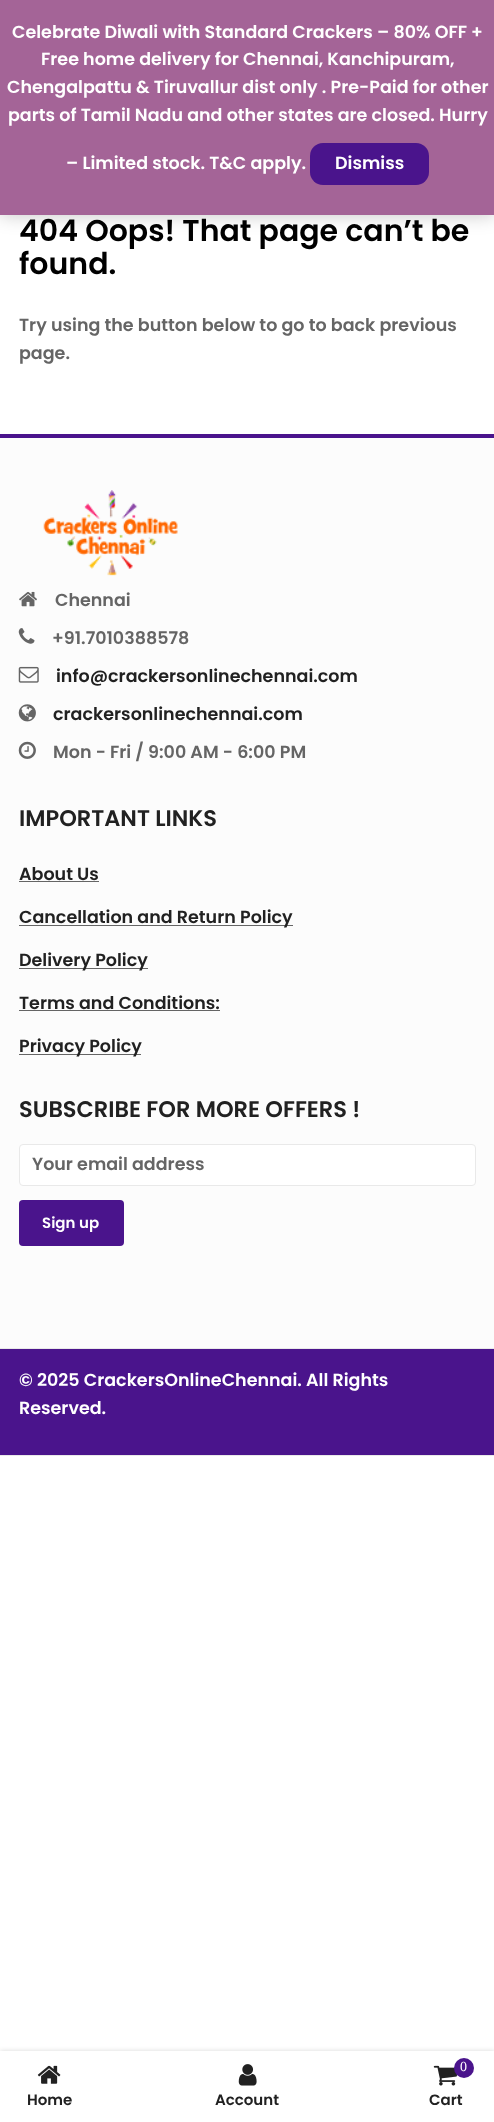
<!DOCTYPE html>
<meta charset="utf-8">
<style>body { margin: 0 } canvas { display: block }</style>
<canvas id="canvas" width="494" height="2122"></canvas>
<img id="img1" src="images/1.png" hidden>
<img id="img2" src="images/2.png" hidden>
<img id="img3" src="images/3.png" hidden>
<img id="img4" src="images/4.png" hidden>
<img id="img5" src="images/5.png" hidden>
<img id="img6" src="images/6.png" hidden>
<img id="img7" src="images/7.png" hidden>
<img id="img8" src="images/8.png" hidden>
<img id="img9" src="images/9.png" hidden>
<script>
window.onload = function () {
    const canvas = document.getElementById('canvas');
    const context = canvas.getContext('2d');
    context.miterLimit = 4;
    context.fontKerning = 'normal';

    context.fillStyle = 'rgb(255, 255, 255)';
    context.fillRect(0, 0, 494, 2122);
    context.fillStyle = 'rgba(0, 0, 0, 0.2)';
    context.filter = 'blur(9px)';
    context.beginPath();
    context.rect(0, 1, 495, 215);
    context.fill();
    context.filter = 'none';
    context.fillStyle = 'rgb(164, 100, 151)';
    context.fillRect(0, 0, 494, 215);
    context.fillStyle = 'rgb(74, 20, 140)';
    context.beginPath();
    context.roundRect(310, 143, 119, 42, 13);
    context.fill();
    context.fillStyle = 'rgb(252, 252, 252)';
    context.fillRect(0, 438, 494, 910);
    context.fillStyle = 'rgb(74, 20, 140)';
    context.fillRect(0, 434, 494, 4);
    context.fillStyle = 'rgb(233, 233, 233)';
    context.fillRect(0, 1348, 494, 1);
    context.drawImage(document.getElementById('img1'), 43, 490, 135, 86);
    context.drawImage(document.getElementById('img2'), 19, 591, 18, 16);
    context.drawImage(document.getElementById('img3'), 18, 628, 17, 16);
    context.drawImage(document.getElementById('img4'), 18, 666, 21, 17);
    context.drawImage(document.getElementById('img5'), 18, 704, 18, 18);
    context.drawImage(document.getElementById('img6'), 18, 741, 18, 18);
    context.fillStyle = 'rgb(101, 101, 101)';
    context.fillRect(19, 881, 80, 1);
    context.fillRect(19, 925, 274, 1);
    context.fillRect(19, 968, 129, 1);
    context.fillRect(19, 1010, 201, 1);
    context.fillRect(19, 1054, 122, 1);
    context.fillStyle = 'rgb(255, 255, 255)';
    context.beginPath();
    context.roundRect(19.5, 1144.5, 456, 41, 3.5);
    context.fill();
    context.strokeStyle = 'rgb(233, 233, 233)';
    context.stroke();
    context.fillStyle = 'rgb(74, 20, 140)';
    context.beginPath();
    context.roundRect(19, 1200, 105, 46, 4);
    context.fill();
    context.fillRect(0, 1349, 494, 106);
    context.fillStyle = 'rgb(233, 233, 233)';
    context.fillRect(0, 1455, 494, 1);
    context.fillStyle = 'rgba(0, 0, 0, 0.15)';
    context.filter = 'blur(2.5px)';
    context.beginPath();
    context.rect(0, 2051, 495, 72);
    context.fill();
    context.filter = 'none';
    context.fillStyle = 'rgb(255, 255, 255)';
    context.fillRect(0, 2051, 494, 71);
    context.drawImage(document.getElementById('img7'), 37, 2065, 24, 19);
    context.drawImage(document.getElementById('img8'), 238, 2064, 19, 22);
    context.drawImage(document.getElementById('img9'), 433, 2065, 24, 21);
    context.fillStyle = 'rgb(74, 20, 140)';
    context.beginPath();
    context.arc(464, 2068, 10, 0, 2 * Math.PI);
    context.fill();
    context.font = '600 17.5px Poppins';
    context.fillStyle = 'rgb(255, 255, 255)';
    context.fillText('Celebrate Diwali with Standard Crackers – 80% OFF +', 12, 38);
    context.fillText('Free home delivery for Chennai, Kanchipuram,', 41, 65);
    context.fillText('Chengalpattu & Tiruvallur dist only . Pre-Paid for other', 7, 93);
    context.fillText('parts of Tamil Nadu and other states are closed. Hurry', 8, 121);
    context.fillText('– Limited stock. T&C apply.', 66, 169);
    context.fillText('Dismiss', 335, 169);
    context.font = '600 30px Poppins';
    context.fillStyle = 'rgb(0, 0, 0)';
    context.fillText('404 Oops! That page can’t be', 19, 241);
    context.fillText('found.', 19, 274);
    context.font = '600 17.5px Poppins';
    context.fillStyle = 'rgb(101, 101, 101)';
    context.fillText('Try using the button below to go to back previous', 19, 331);
    context.fillText('page.', 19, 359);
    context.fillText('Chennai', 55, 606);
    context.fillText('+91.7010388578', 52, 644);
    context.fillStyle = 'rgb(33, 33, 33)';
    context.fillText('info@crackersonlinechennai.com', 56, 682);
    context.fillText('crackersonlinechennai.com', 53, 720);
    context.fillStyle = 'rgb(101, 101, 101)';
    context.fillText('Mon - Fri / 9:00 AM - 6:00 PM', 53, 758);
    context.font = '600 22.5px Poppins';
    context.fillStyle = 'rgb(33, 33, 33)';
    context.fillText('IMPORTANT LINKS', 19, 826);
    context.font = '600 17.5px Poppins';
    context.fillText('About Us', 19, 880);
    context.fillText('Cancellation and Return Policy', 19, 923);
    context.fillText('Delivery Policy', 19, 966);
    context.fillText('Terms and Conditions:', 19, 1009);
    context.fillText('Privacy Policy', 19, 1052);
    context.font = '600 22.5px Poppins';
    context.fillText('SUBSCRIBE FOR MORE OFFERS !', 19, 1117);
    context.font = '600 17.5px Poppins';
    context.fillStyle = 'rgb(101, 101, 101)';
    context.fillText('Your email address', 32, 1170);
    context.font = '600 15px Poppins';
    context.fillStyle = 'rgb(255, 255, 255)';
    context.fillText('Sign up', 42, 1228);
    context.font = '600 17.5px Poppins';
    context.fillText('© 2025 CrackersOnlineChennai. All Rights', 19, 1386);
    context.fillText('Reserved.', 19, 1414);
    context.font = '600 15px Poppins';
    context.fillStyle = 'rgb(33, 33, 33)';
    context.fillText('Home', 27, 2105);
    context.fillText('Account', 215, 2105);
    context.font = '14px Liberation Serif';
    context.fillStyle = 'rgb(255, 255, 255)';
    context.fillText('0', 460, 2071);
    context.font = '600 15px Poppins';
    context.fillStyle = 'rgb(33, 33, 33)';
    context.fillText('Cart', 429, 2105);
};
</script>
